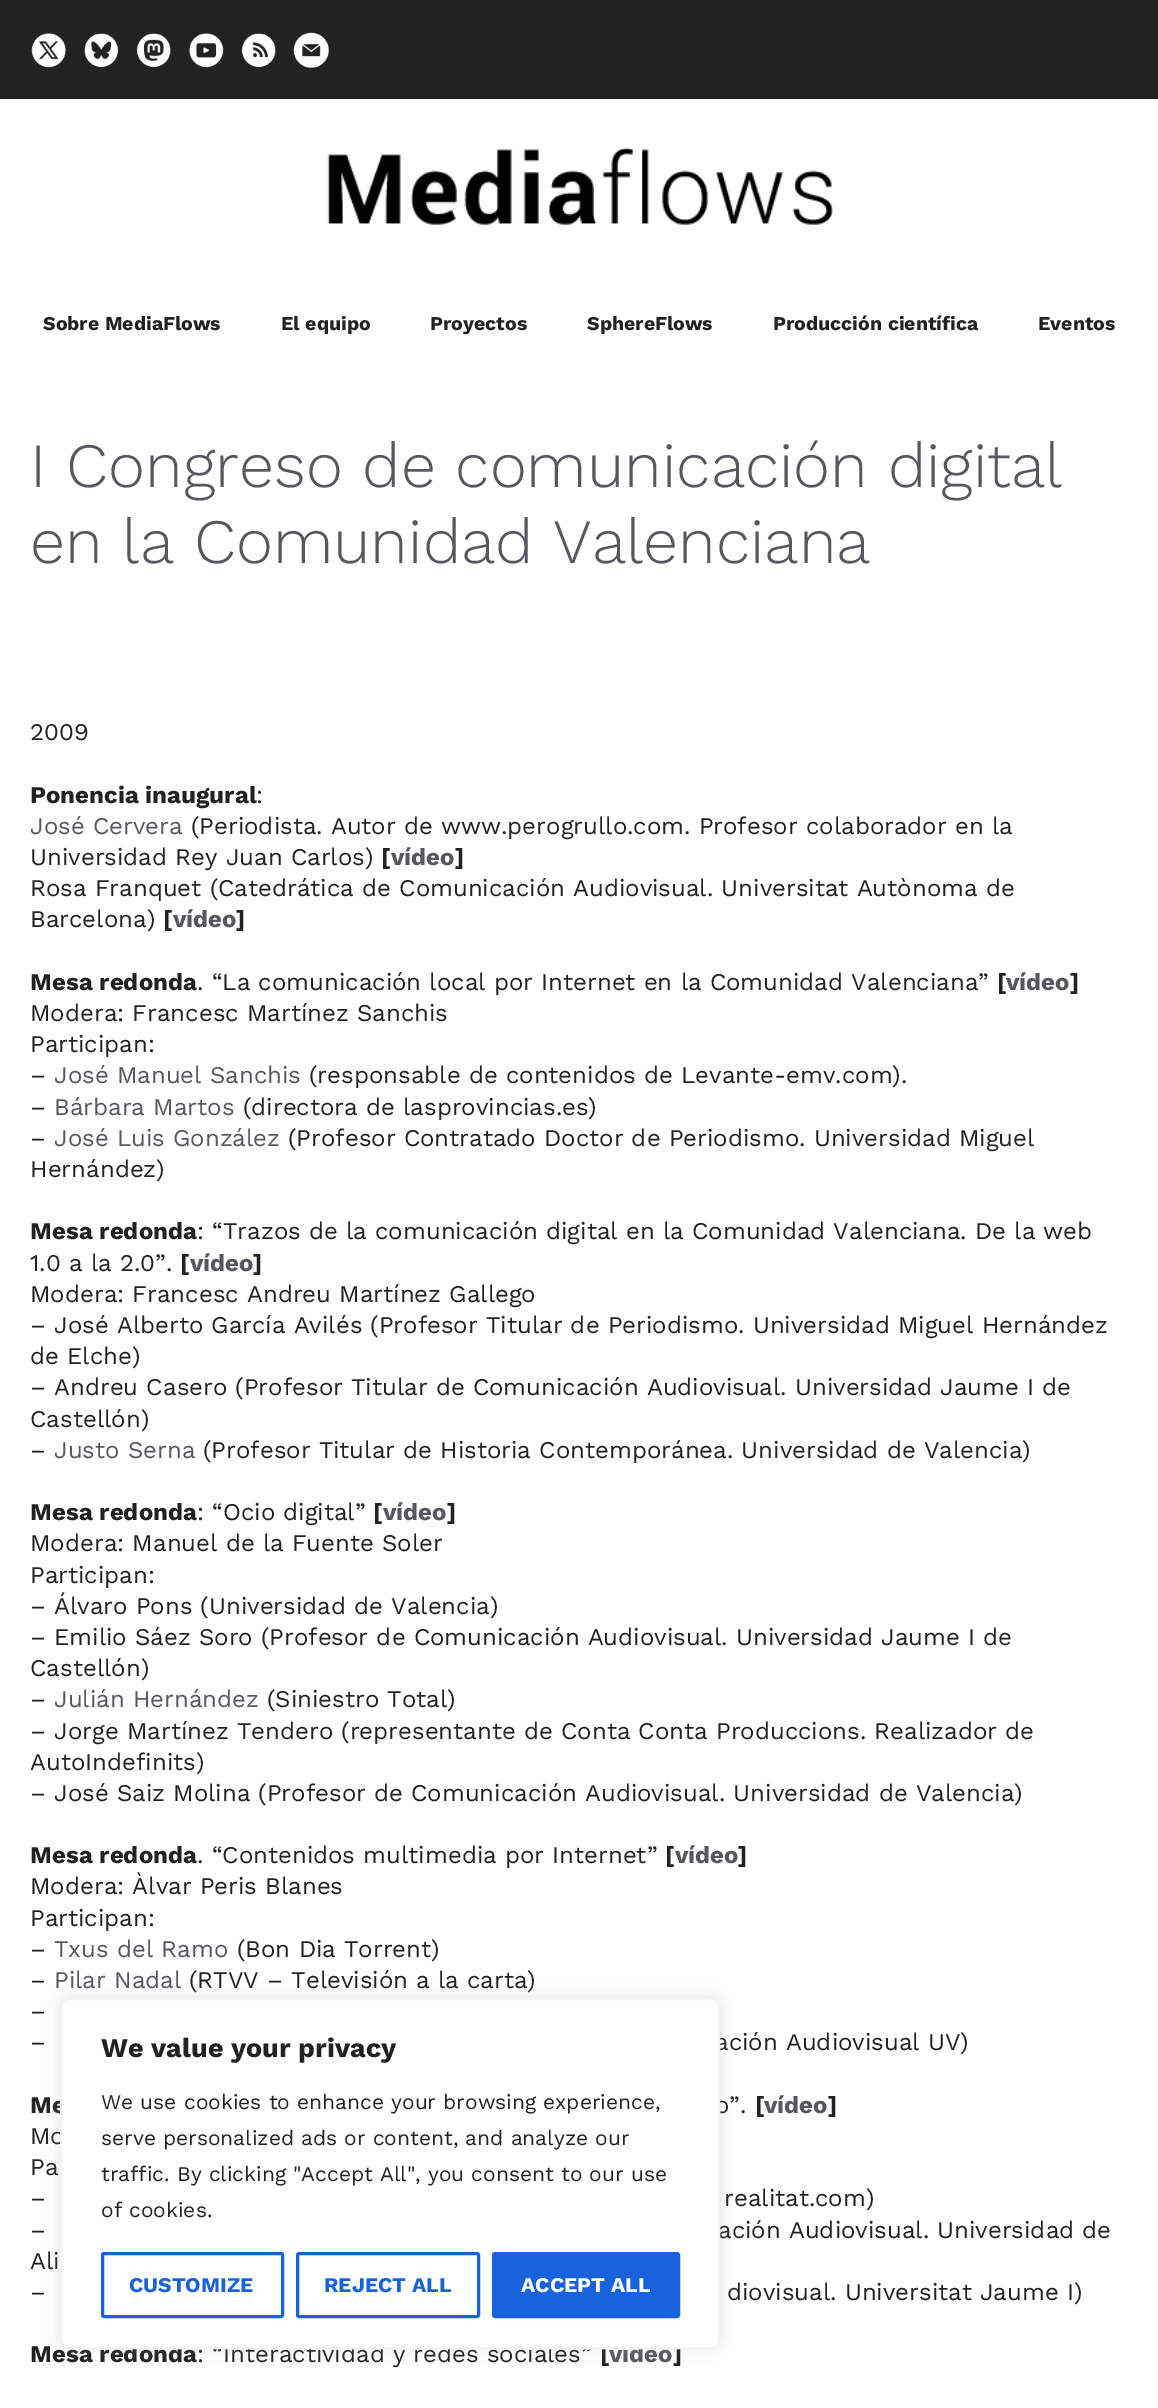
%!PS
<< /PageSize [1158 2408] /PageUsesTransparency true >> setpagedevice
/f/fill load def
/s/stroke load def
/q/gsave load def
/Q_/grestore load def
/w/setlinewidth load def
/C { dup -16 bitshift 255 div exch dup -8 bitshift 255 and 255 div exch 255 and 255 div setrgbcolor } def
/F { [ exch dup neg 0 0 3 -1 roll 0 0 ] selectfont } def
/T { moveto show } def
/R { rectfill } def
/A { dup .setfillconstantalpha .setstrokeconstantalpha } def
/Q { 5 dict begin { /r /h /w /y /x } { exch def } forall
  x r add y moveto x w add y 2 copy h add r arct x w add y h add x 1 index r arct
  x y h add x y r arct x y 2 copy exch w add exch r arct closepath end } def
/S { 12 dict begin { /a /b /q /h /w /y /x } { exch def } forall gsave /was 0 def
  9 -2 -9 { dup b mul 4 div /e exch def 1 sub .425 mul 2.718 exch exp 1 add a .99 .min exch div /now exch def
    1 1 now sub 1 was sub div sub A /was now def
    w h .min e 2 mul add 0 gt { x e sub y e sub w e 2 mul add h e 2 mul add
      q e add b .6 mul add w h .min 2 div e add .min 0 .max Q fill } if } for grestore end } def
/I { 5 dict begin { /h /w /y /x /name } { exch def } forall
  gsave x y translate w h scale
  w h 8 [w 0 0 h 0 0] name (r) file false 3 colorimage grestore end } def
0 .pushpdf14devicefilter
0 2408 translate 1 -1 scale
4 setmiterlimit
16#FFFFFF C
0 0 1158 2408 R
16#222222 C
0 0 1158 99 R
(1.rgb) 31 33 35 35 I
(2.rgb) 84 33 35 35 I
(3.rgb) 136 33 35 35 I
(4.rgb) 189 33 35 35 I
(5.rgb) 241 33 35 35 I
(6.rgb) 293 32 37 37 I
(7.rgb) 327 147 506 78 I
/WorkSans-Bold 19.5 F
(Sobre MediaFlows) 43 330 T
(El equipo) 281 330 T
(Proyectos) 430 330 T
(SphereFlows) 587 330 T
(Producción científica) 773 330 T
(Eventos) 1038 330 T
/WorkSans-Light 63 F
16#575760 C
(I Congreso de comunicación digital) 30 487 T
(en la Comunidad Valenciana) 30 563 T
/WorkSans-Regular 24 F
16#222222 C
(2009) 30 740 T
/WorkSans-Bold 24 F
(Ponencia inaugural) 30 803 T
/WorkSans-Regular 24 F
(:) 256 803 T
16#575760 C
(José Cervera) 30 834 T
16#222222 C
(\(Periodista. Autor de www.perogrullo.com. Profesor colaborador en la) 191 834 T
(Universidad Rey Juan Carlos\)) 30 865 T
/WorkSans-Bold 24 F
([) 381 865 T
16#575760 C
(vídeo) 391 865 T
16#222222 C
(]) 455 865 T
/WorkSans-Regular 24 F
(Rosa Franquet \(Catedrática de Comunicación Audiovisual. Universitat Autònoma de) 30 896 T
(Barcelona\)) 30 927 T
/WorkSans-Bold 24 F
([) 163 927 T
16#575760 C
(vídeo) 173 927 T
16#222222 C
(]) 236 927 T
(Mesa redonda) 30 990 T
/WorkSans-Regular 24 F
(. “La comunicación local por Internet en la Comunidad Valenciana”) 197 990 T
/WorkSans-Bold 24 F
([) 997 990 T
16#575760 C
(vídeo) 1006 990 T
16#222222 C
(]) 1070 990 T
/WorkSans-Regular 24 F
(Modera: Francesc Martínez Sanchis) 30 1021 T
(Participan:) 30 1052 T
(–) 30 1083 T
16#575760 C
(José Manuel Sanchis) 54 1083 T
16#222222 C
(\(responsable de contenidos de Levante-emv.com\).) 309 1083 T
(–) 30 1115 T
16#575760 C
(Bárbara Martos) 54 1115 T
16#222222 C
(\(directora de lasprovincias.es\)) 243 1115 T
(–) 30 1146 T
16#575760 C
(José Luis González) 54 1146 T
16#222222 C
(\(Profesor Contratado Doctor de Periodismo. Universidad Miguel) 288 1146 T
(Hernández\)) 30 1177 T
/WorkSans-Bold 24 F
(Mesa redonda) 30 1239 T
/WorkSans-Regular 24 F
(: “Trazos de la comunicación digital en la Comunidad Valenciana. De la web) 197 1239 T
(1.0 a la 2.0”.) 30 1271 T
/WorkSans-Bold 24 F
([) 180 1271 T
16#575760 C
(vídeo) 190 1271 T
16#222222 C
(]) 253 1271 T
/WorkSans-Regular 24 F
(Modera: Francesc Andreu Martínez Gallego) 30 1302 T
(– José Alberto García Avilés \(Profesor Titular de Periodismo. Universidad Miguel Hernández) 30 1333 T
(de Elche\)) 30 1364 T
(– Andreu Casero \(Profesor Titular de Comunicación Audiovisual. Universidad Jaume I de) 30 1395 T
(Castellón\)) 30 1427 T
(–) 30 1458 T
16#575760 C
(Justo Serna) 54 1458 T
16#222222 C
(\(Profesor Titular de Historia Contemporánea. Universidad de Valencia\)) 203 1458 T
/WorkSans-Bold 24 F
(Mesa redonda) 30 1520 T
/WorkSans-Regular 24 F
(: “Ocio digital”) 197 1520 T
/WorkSans-Bold 24 F
([) 373 1520 T
16#575760 C
(vídeo) 383 1520 T
16#222222 C
(]) 447 1520 T
/WorkSans-Regular 24 F
(Modera: Manuel de la Fuente Soler) 30 1551 T
(Participan:) 30 1583 T
(– Álvaro Pons \(Universidad de Valencia\)) 30 1614 T
(– Emilio Sáez Soro \(Profesor de Comunicación Audiovisual. Universidad Jaume I de) 30 1645 T
(Castellón\)) 30 1676 T
(–) 30 1707 T
16#575760 C
(Julián Hernández) 54 1707 T
16#222222 C
(\(Siniestro Total\)) 267 1707 T
(– Jorge Martínez Tendero \(representante de Conta Conta Produccions. Realizador de) 30 1739 T
(AutoIndefinits\)) 30 1770 T
(– José Saiz Molina \(Profesor de Comunicación Audiovisual. Universidad de Valencia\)) 30 1801 T
/WorkSans-Bold 24 F
(Mesa redonda) 30 1863 T
/WorkSans-Regular 24 F
(. “Contenidos multimedia por Internet”) 197 1863 T
/WorkSans-Bold 24 F
([) 665 1863 T
16#575760 C
(vídeo) 675 1863 T
16#222222 C
(]) 738 1863 T
/WorkSans-Regular 24 F
(Modera: Àlvar Peris Blanes) 30 1894 T
(Participan:) 30 1926 T
(–) 30 1957 T
16#575760 C
(Txus del Ramo) 54 1957 T
16#222222 C
(\(Bon Dia Torrent\)) 237 1957 T
(–) 30 1988 T
16#575760 C
(Pilar Nadal) 54 1988 T
16#222222 C
(\(RTVV – Televisión a la carta\)) 189 1988 T
(–) 30 2019 T
(–) 30 2050 T
(ación Audiovisual UV\)) 715 2050 T
/WorkSans-Bold 24 F
(Me) 30 2113 T
/WorkSans-Regular 24 F
(o”.) 715 2113 T
/WorkSans-Bold 24 F
([) 755 2113 T
16#575760 C
(vídeo) 764 2113 T
16#222222 C
(]) 828 2113 T
/WorkSans-Regular 24 F
(Mo) 30 2144 T
(Pa) 30 2175 T
(–) 30 2206 T
(realitat.com\)) 724 2206 T
(–) 30 2238 T
(ación Audiovisual. Universidad de) 718 2238 T
(Ali) 30 2269 T
(–) 30 2300 T
(diovisual. Universitat Jaume I\)) 727 2300 T
/WorkSans-Bold 24 F
(Mesa redonda) 30 2362 T
/WorkSans-Regular 24 F
(: “Interactividad y redes sociales”) 197 2362 T
/WorkSans-Bold 24 F
([) 600 2362 T
16#575760 C
(vídeo) 609 2362 T
16#222222 C
(]) 673 2362 T
16#ACABAB C
60 1997 660 351 9 7.5 .3 S
16#FFFFFF C
61 1999 658 349 8 Q q f Q_
16#F4F4F4 C
2 w
s
/WorkSans-Bold 27 F
16#222222 C
(We value your privacy) 101 2057 T
/WorkSans-Regular 21 F
(We use cookies to enhance your browsing experience,) 101 2109 T
(serve personalized ads or content, and analyze our) 101 2145 T
(traffic. By clicking "Accept All", you consent to our use) 101 2181 T
(of cookies.) 101 2217 T
16#1863DC C
3 w
102.5 2253.5 180 63 1.5 Q s
/WorkSans-Bold 21 F
(CUSTOMIZE) 129 2292 T
297.5 2253.5 181 63 1.5 Q s
(REJECT ALL) 324 2292 T
493.5 2253.5 185 63 1.5 Q q f Q_
s
16#FFFFFF C
(ACCEPT ALL) 521 2292 T
.poppdf14devicefilter showpage
